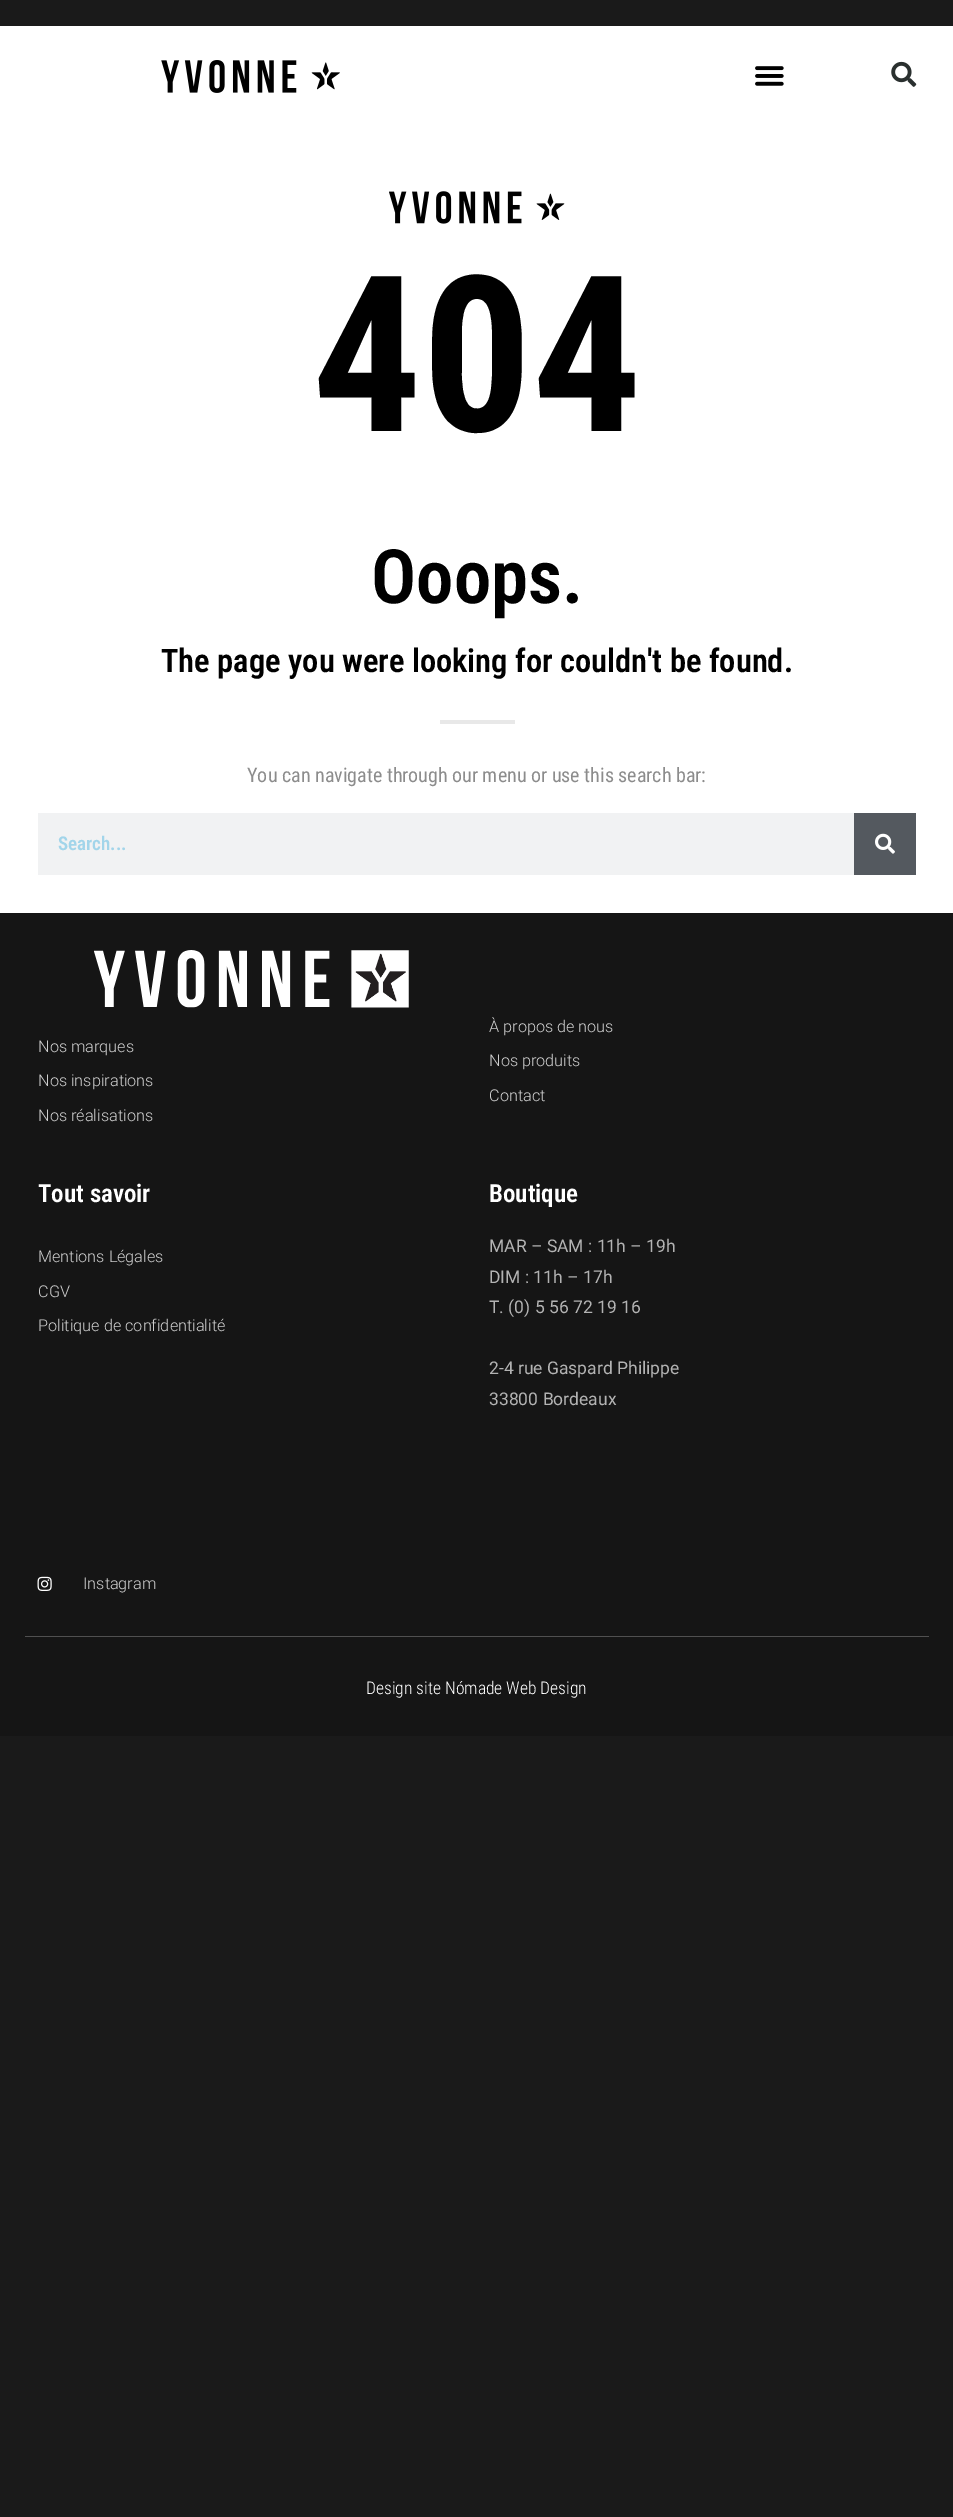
%!PS
<< /PageSize [953 2517] >> setpagedevice
/C { dup -16 bitshift 255 div exch dup -8 bitshift 255 and 255 div exch 255 and 255 div setrgbcolor } def
/F { [ exch dup neg 0 0 3 -1 roll 0 0 ] selectfont } def
/T { moveto show } def
/R { rectfill } def
/I { 5 dict begin { /h /w /y /x /name } { exch def } forall
  gsave x y translate w h scale
  w h 8 [w 0 0 h 0 0] name (r) file false 3 colorimage grestore end } def
0 2517 translate 1 -1 scale
4 setmiterlimit
16#1A1A1A C
0 0 953 2517 R
16#FFFFFF C
0 26 953 887 R
(1.rgb) 161 60 179 33 I
(2.rgb) 755 66 29 20 I
(3.rgb) 891 61 26 26 I
(4.rgb) 389 191 176 33 I
/RobotoCondensed-Bold 218 F
16#000000 C
(404) 312 431 T
/RobotoCondensed-SemiBold 75 F
(Ooops.) 371 603 T
/RobotoCondensed-SemiBold 32.5 F
(The page you were looking for couldn't be found.) 161 672 T
16#E8E8E8 C
440 720 75 4 R
/RobotoCondensed-Regular 20 F
16#8C8C8C C
(You can navigate through our menu or use this search bar:) 247 782 T
16#F1F2F3 C
38 813 816 62 R
/RobotoCondensed-SemiBold 19 F
16#A2D5EA C
(Search...) 58 850 T
16#54595F C
854 813 62 62 R
(5.rgb) 875 833 20 21 I
16#151515 C
0 913 953 823 R
(6.rgb) 94 950 315 58 I
/Roboto-Light 16.25 F
16#CECECE C
(Nos marques) 38 1052 T
(Nos inspirations) 38 1086 T
(Nos réalisations) 38 1121 T
(À propos de nous) 489 1032 T
(Nos produits) 489 1066 T
(Contact) 489 1101 T
/RobotoCondensed-SemiBold 25 F
16#FFFFFF C
(Tout savoir) 38 1202 T
/Roboto-Light 16.25 F
16#CECECE C
(Mentions Légales) 38 1262 T
(CGV) 38 1297 T
(Politique de confidentialité) 38 1331 T
/RobotoCondensed-SemiBold 25 F
16#FFFFFF C
(Boutique) 489 1202 T
/Roboto-Regular 17.5 F
16#B3B3B3 C
(MAR – SAM : 11h – 19h) 489 1252 T
(DIM : 11h – 17h) 489 1283 T
(T. \(0\) 5 56 72 19 16) 489 1313 T
(2-4 rue Gaspard Philippe) 489 1374 T
(33800 Bordeaux) 489 1405 T
(7.rgb) 37 1576 15 15 I
/Roboto-Light 16.25 F
16#CECECE C
(Instagram) 83 1589 T
16#505050 C
25 1636 904 1 R
/RobotoCondensed-Light 17.5 F
16#FFFFFF C
(Design site Nómade Web Design) 366 1694 T
showpage
